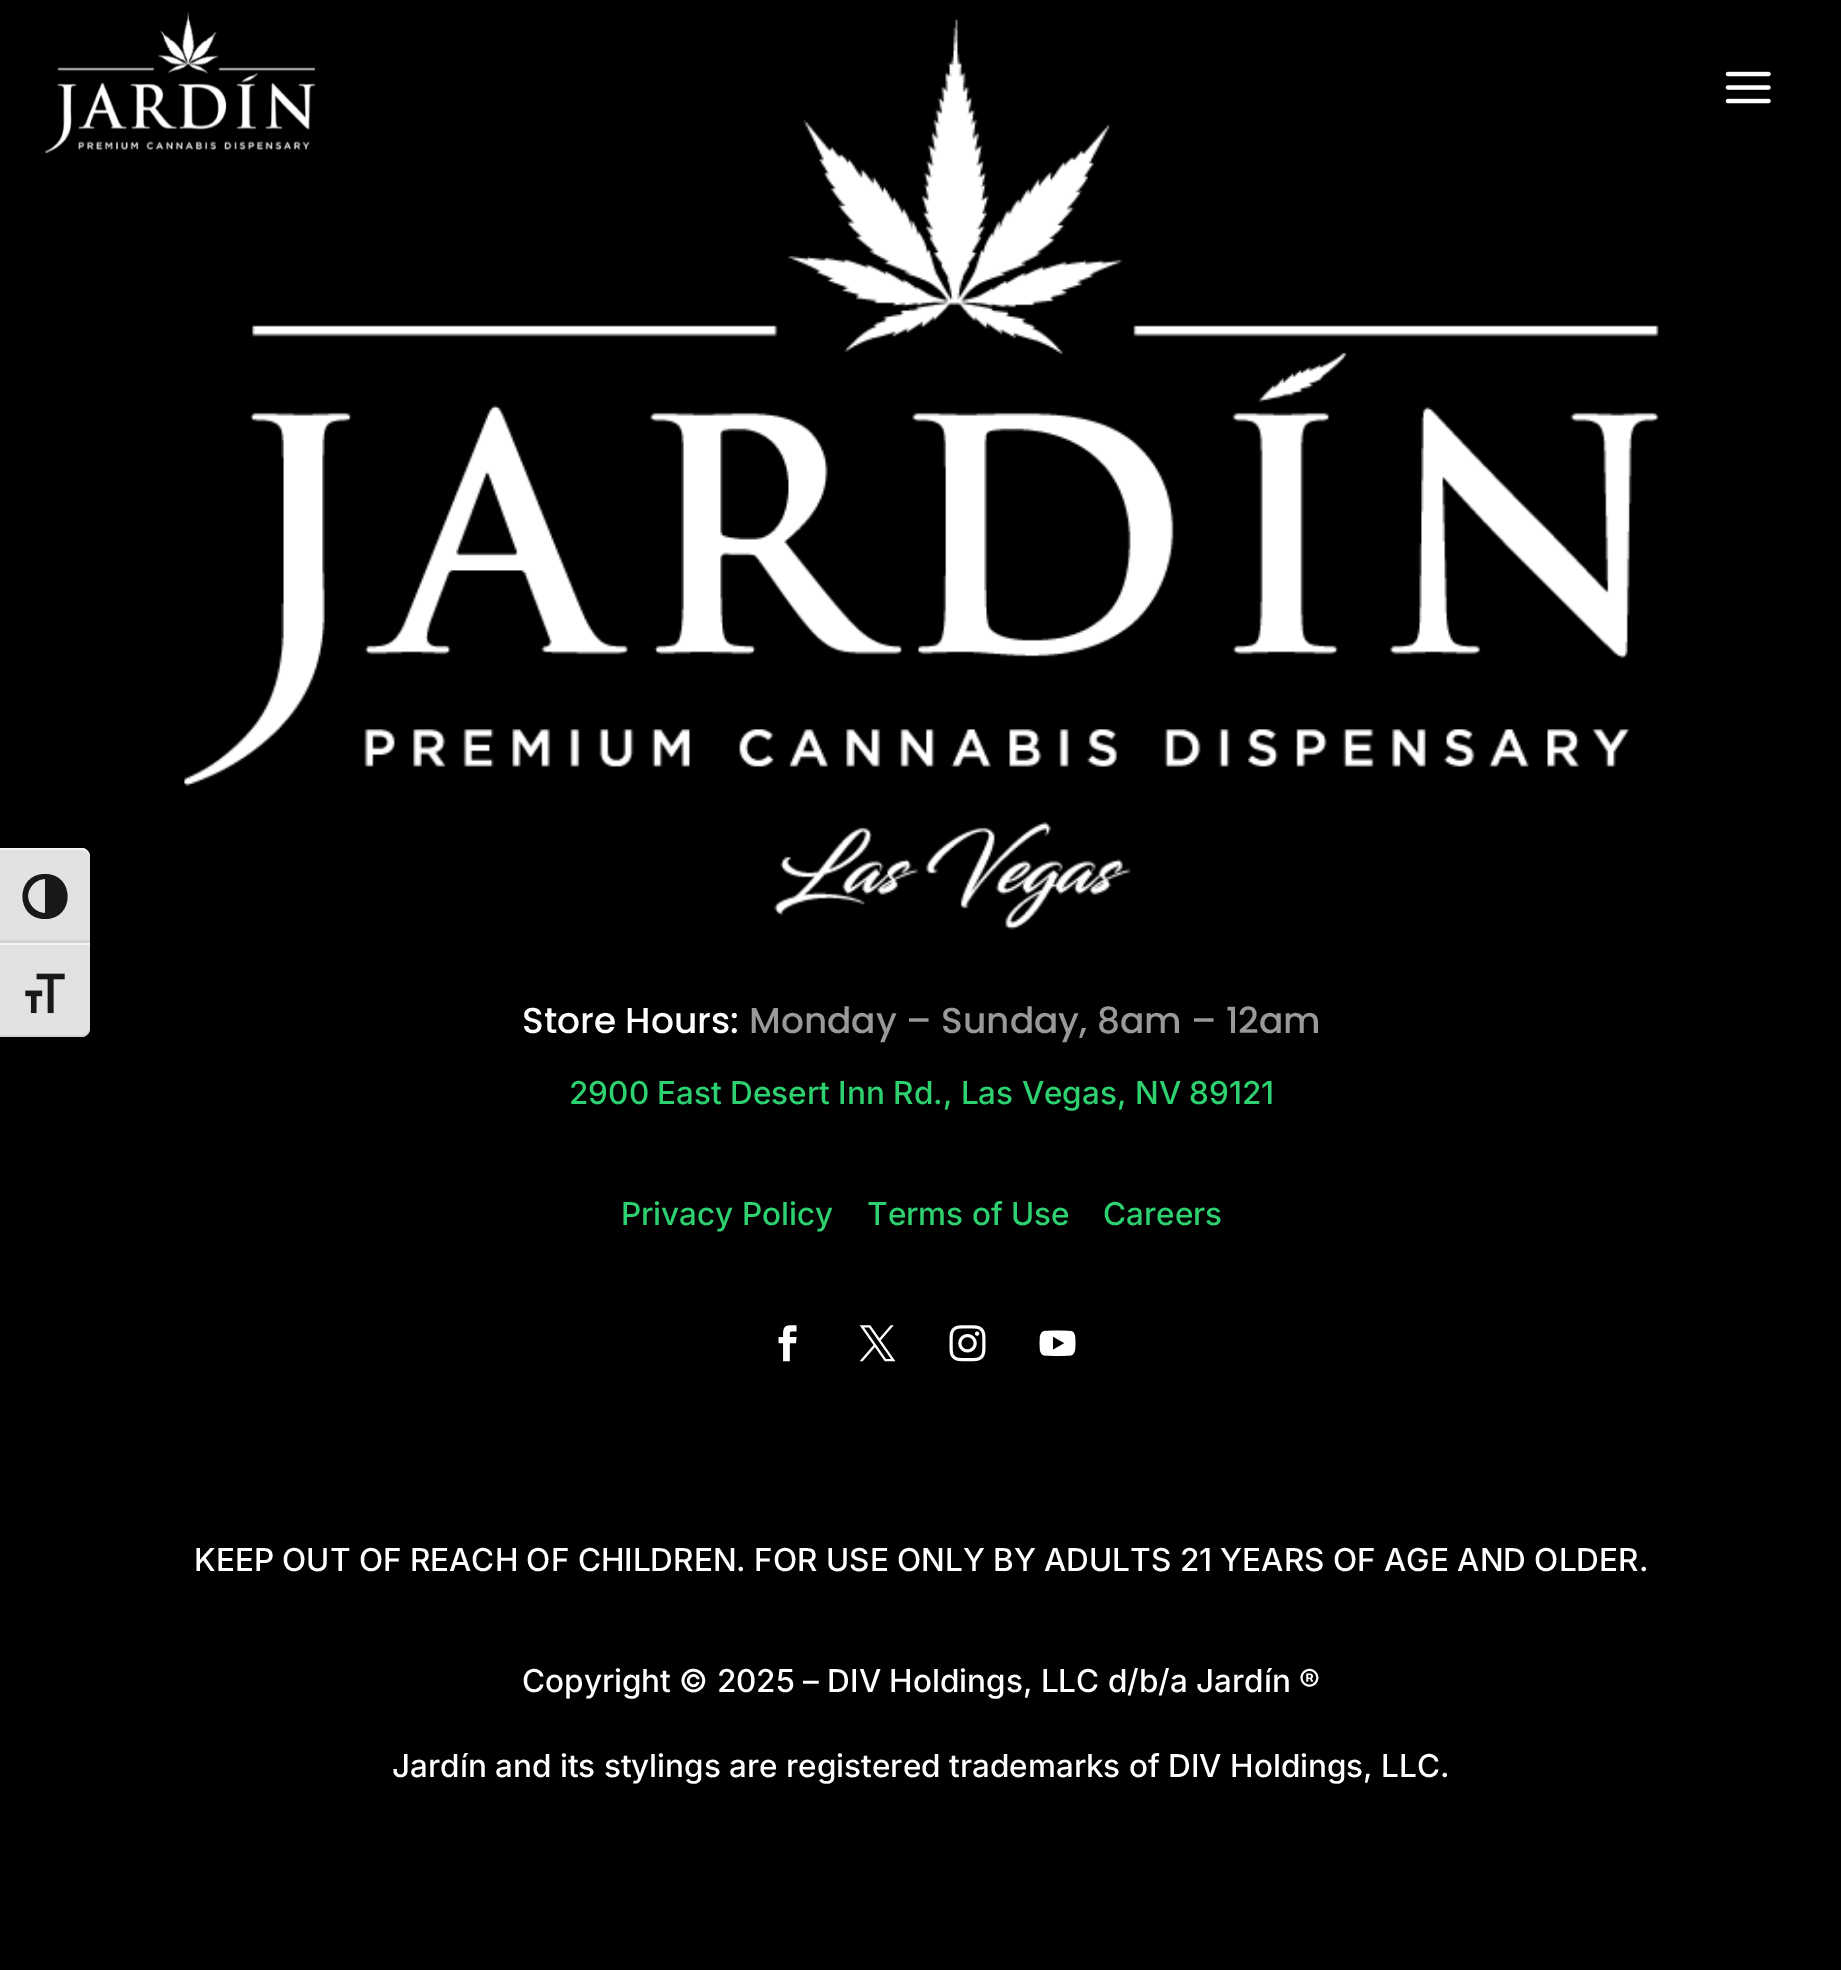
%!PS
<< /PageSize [1841 1970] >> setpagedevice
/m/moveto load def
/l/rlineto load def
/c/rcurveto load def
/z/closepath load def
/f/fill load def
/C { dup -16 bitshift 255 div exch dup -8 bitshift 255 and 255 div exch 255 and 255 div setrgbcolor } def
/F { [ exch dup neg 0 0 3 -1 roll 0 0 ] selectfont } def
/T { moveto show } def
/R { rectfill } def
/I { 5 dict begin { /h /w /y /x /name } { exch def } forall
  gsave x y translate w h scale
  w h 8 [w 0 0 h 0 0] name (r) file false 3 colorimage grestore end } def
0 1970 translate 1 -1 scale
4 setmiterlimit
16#000000 C
0 0 1841 1970 R
16#E2E2E2 C
0 848 m 81 0 l 5 0 9 4 9 9 c 0 86 l -90 0 l z f
16#F5F5F5 C
0 850 m 81 0 l 5 0 9 4 9 7 c 0 -4 -3 -8 -7 -9 c -83 0 l z f
16#D2D2D2 C
0 940 90 3 R
16#181818 C
45 874 m -30 0 -30 45 0 45 c 30 0 30 -45 0 -45 c z 28 896 m 0 -9 8 -17 17 -17 c 0 34 l -9 0 -17 -8 -17 -17 c z f
16#E2E2E2 C
0 943 m 90 0 l 0 85 l 0 5 -4 9 -9 9 c -81 0 l z f
16#F5F5F5 C
0 943 90 2 R
16#D2D2D2 C
0 1035 m 0 2 l 81 0 l 5 0 9 -4 9 -9 c 0 4 -4 7 -9 7 c z f
(1.rgb) 25 973 40 41 I
(4.rgb) 184 19 1475 911 I
(2.rgb) 45 12 270 141 I
(3.rgb) 1725 71 46 33 I
/Poppins-Medium 36 F
16#FFFFFF C
(Store Hours:) 522 1033 T
16#999999 C
(Monday – Sunday, 8am – 12am) 749 1033 T
/Inter-Medium 31.5 F
16#2ED16F C
(2900 East Desert Inn Rd., Las Vegas, NV 89121) 569 1104 T
(Privacy Policy) 621 1225 T
(Terms of Use) 867 1225 T
(Careers) 1103 1225 T
(5.rgb) 778 1325 19 37 I
(6.rgb) 859 1325 37 37 I
(7.rgb) 949 1325 37 37 I
(8.rgb) 1039 1330 37 27 I
16#FFFFFF C
(KEEP OUT OF REACH OF CHILDREN. FOR USE ONLY BY ADULTS 21 YEARS OF AGE AND OLDER.) 194 1571 T
(Copyright © 2025 – DIV Holdings, LLC d/b/a Jardín ®) 522 1692 T
(Jardín and its stylings are registered trademarks of DIV Holdings, LLC.) 392 1777 T
showpage
